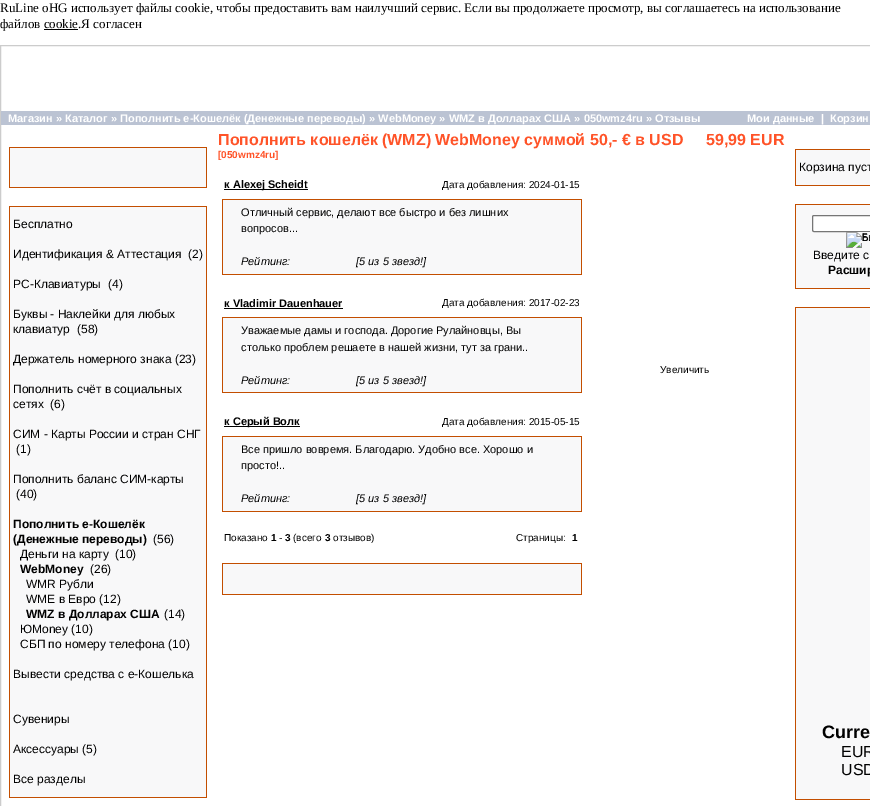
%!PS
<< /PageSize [870 806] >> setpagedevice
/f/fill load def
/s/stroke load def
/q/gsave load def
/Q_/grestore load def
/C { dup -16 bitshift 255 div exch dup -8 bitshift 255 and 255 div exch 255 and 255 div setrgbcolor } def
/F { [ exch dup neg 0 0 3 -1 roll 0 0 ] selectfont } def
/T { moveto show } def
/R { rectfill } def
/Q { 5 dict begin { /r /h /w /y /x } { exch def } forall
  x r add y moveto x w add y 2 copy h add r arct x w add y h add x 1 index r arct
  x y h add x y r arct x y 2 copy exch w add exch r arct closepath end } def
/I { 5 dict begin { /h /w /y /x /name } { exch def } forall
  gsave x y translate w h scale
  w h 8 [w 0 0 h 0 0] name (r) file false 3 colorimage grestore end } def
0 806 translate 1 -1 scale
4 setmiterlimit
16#FFFFFF C
0 0 870 806 R
/LiberationSerif-Regular 13 F
16#000000 C
(RuLine oHG использует файлы cookie, чтобы предоставить вам наилучший сервис. Если вы продолжаете просмотр, вы соглашаетесь на использование) 0 12 T
(файлов cookie.Я согласен) 0 28 T
44 29 34 1 R
16#CCCCCC C
.5 45.5 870 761 rectstroke
16#BBC3D3 C
1 111 869 14 R
/LiberationSans-Bold 11 F
16#FFFFFF C
(Магазин » Каталог » Пополнить e-Кошелёк \(Денежные переводы\) » WebMoney » WMZ в Долларах США » 050wmz4ru » Отзывы) 8 122 T
(Мои данные) 747 122 T
(|) 821 122 T
(Корзин) 830 122 T
16#C34E00 C
9 147 198 41 R
16#F8F8F9 C
10 148 196 39 R
16#C34E00 C
9 206 198 592 R
16#F8F8F9 C
10 207 196 590 R
/LiberationSans-Regular 12 F
16#000000 C
(Бесплатно) 13 228 T
(Идентификация & Аттестация) 13 258 T
(\(2\)) 188 258 T
(PC-Клавиатуры) 13 288 T
(\(4\)) 108 288 T
(Буквы - Наклейки для любых) 13 318 T
(клавиатур) 13 333 T
(\(58\)) 77 333 T
(Держатель номерного знака \(23\)) 13 363 T
(Пополнить счёт в социальных) 13 393 T
(сетях) 13 408 T
(\(6\)) 50 408 T
(СИМ - Карты России и стран СНГ) 13 438 T
(\(1\)) 16 453 T
(Пополнить баланс СИМ-карты) 13 483 T
(\(40\)) 16 498 T
/LiberationSans-Bold 12 F
(Пополнить e-Кошелёк) 13 528 T
(\(Денежные переводы\)) 13 543 T
/LiberationSans-Regular 12 F
(\(56\)) 153 543 T
(Деньги на карту) 20 558 T
(\(10\)) 115 558 T
/LiberationSans-Bold 12 F
(WebMoney) 20 573 T
/LiberationSans-Regular 12 F
(\(26\)) 90 573 T
(WMR Рубли) 26 588 T
(WME в Евро \(12\)) 26 603 T
/LiberationSans-Bold 12 F
(WMZ в Долларах США) 26 618 T
/LiberationSans-Regular 12 F
(\(14\)) 164 618 T
(ЮMoney \(10\)) 20 633 T
(СБП по номеру телефона \(10\)) 20 648 T
(Вывести средства с е-Кошелька) 13 678 T
(Сувениры) 13 723 T
(Аксессуары \(5\)) 13 753 T
(Все разделы) 13 783 T
/LiberationSans-Bold 16 F
16#FF5328 C
(Пополнить кошелёк \(WMZ\) WebMoney суммой 50,- € в USD) 218 145 T
/LiberationSans-Bold 10 F
([050wmz4ru]) 218 158 T
/LiberationSans-Bold 16 F
(59,99 EUR) 706 145 T
16#000000 C
224 189 84 1 R
/LiberationSans-Bold 11 F
(к Alexej Scheidt) 224 188 T
/LiberationSans-Regular 10 F
(Дата добавления: 2024-01-15) 442 188 T
16#C34E00 C
222 199 360 76 R
16#F8F8F9 C
223 200 358 74 R
/LiberationSans-Regular 11 F
16#000000 C
(Отличный сервис, делают все быстро и без лишних) 241 216 T
(вопросов...) 241 232 T
/LiberationSans-Italic 11 F
(Рейтинг:) 241 265 T
([5 из 5 звезд!]) 356 265 T
/LiberationSans-Bold 11 F
(к Vladimir Dauenhauer) 224 307 T
224 308 119 1 R
/LiberationSans-Regular 10 F
(Дата добавления: 2017-02-23) 442 306 T
16#C34E00 C
222 317 360 76 R
16#F8F8F9 C
223 318 358 74 R
/LiberationSans-Regular 11 F
16#000000 C
(Уважаемые дамы и господа. Дорогие Рулайновцы, Вы) 241 334 T
(столько проблем решаете в нашей жизни, тут за грани..) 241 351 T
/LiberationSans-Italic 11 F
(Рейтинг:) 241 384 T
([5 из 5 звезд!]) 356 384 T
224 426 76 1 R
/LiberationSans-Bold 11 F
(к Серый Волк) 224 425 T
/LiberationSans-Regular 10 F
(Дата добавления: 2015-05-15) 442 425 T
16#C34E00 C
222 436 360 76 R
16#F8F8F9 C
223 437 358 74 R
/LiberationSans-Regular 11 F
16#000000 C
(Все пришло вовремя. Благодарю. Удобно все. Хорошо и) 241 453 T
(просто!..) 241 469 T
/LiberationSans-Italic 11 F
(Рейтинг:) 241 502 T
([5 из 5 звезд!]) 356 502 T
/LiberationSans-Regular 10 F
(Показано) 224 541 T
/LiberationSans-Bold 10 F
(1) 271 541 T
/LiberationSans-Regular 10 F
(-) 279 541 T
/LiberationSans-Bold 10 F
(3) 285 541 T
/LiberationSans-Regular 10 F
(\(всего) 293 541 T
/LiberationSans-Bold 10 F
(3) 325 541 T
/LiberationSans-Regular 10 F
(отзывов\)) 333 541 T
(Страницы:) 516 541 T
/LiberationSans-Bold 10 F
(1) 572 541 T
16#C34E00 C
222 563 360 32 R
16#F8F8F9 C
223 564 358 30 R
/LiberationSans-Regular 10 F
16#000000 C
(Увеличить) 660 373 T
16#C34E00 C
795 149 75 37 R
16#F8F8F9 C
796 150 74 35 R
/LiberationSans-Regular 12 F
16#000000 C
(Корзина пуст) 799 171 T
16#C34E00 C
795 204 75 85 R
16#F8F8F9 C
796 205 74 83 R
16#FFFFFF C
812.5 215.5 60 16 1.5 Q q f Q_
16#767676 C
s
(1.rgb) 846 232 24 16 I
/LiberationSans-Regular 10 F
16#000000 C
(Б) 862 241 T
/LiberationSans-Regular 12 F
(Введите с) 813 259 T
/LiberationSans-Bold 12 F
(Расшир) 828 274 T
16#C34E00 C
795 307 75 493 R
16#F8F8F9 C
796 308 74 491 R
/LiberationSans-Bold 18 F
16#000000 C
(Curre) 822 738 T
/LiberationSans-Regular 16 F
(EUR) 841 757 T
(USD) 841 775 T
showpage
